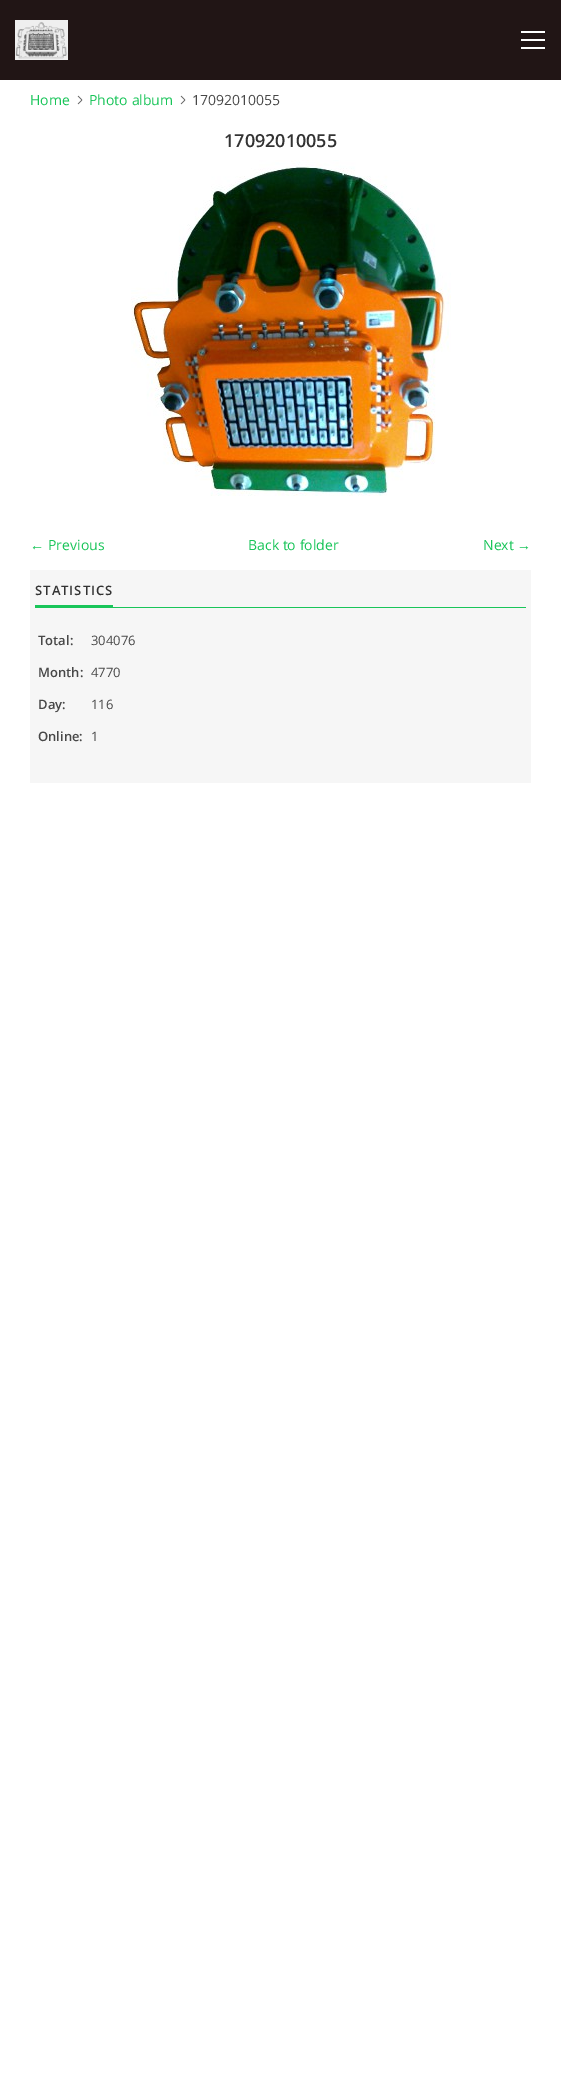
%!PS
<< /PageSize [561 2094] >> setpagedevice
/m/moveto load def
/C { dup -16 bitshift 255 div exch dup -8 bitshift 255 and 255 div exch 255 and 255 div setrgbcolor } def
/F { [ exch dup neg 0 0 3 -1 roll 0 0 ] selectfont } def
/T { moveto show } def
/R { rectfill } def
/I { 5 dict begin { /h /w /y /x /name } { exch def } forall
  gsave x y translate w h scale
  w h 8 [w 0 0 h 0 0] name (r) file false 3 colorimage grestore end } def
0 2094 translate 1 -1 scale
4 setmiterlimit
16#FFFFFF C
0 0 561 2094 R
16#211515 C
0 0 561 80 R
(1.rgb) 15 20 53 40 I
(2.rgb) 521 31 24 18 I
(3.rgb) 77 95 6 10 I
/OpenSans-Regular 14 F
16#19C559 C
(Home) 30 105 T
(3.rgb) 180 95 6 10 I
(Photo album) 89 105 T
16#484848 C
(17092010055) 192 105 T
/OpenSans-SemiBold 18 F
16#333333 C
(17092010055) 224 147 T
(4.rgb) 131 160 320 336 I
/LiberationSerif-Regular 14 F
16#19C559 C
(←) 30 550 T
/OpenSans-Regular 14 F
(Previous) 48 550 T
(Back to folder) 248 550 T
(Next) 483 550 T
/LiberationSerif-Regular 14 F
(→) 517 550 T
16#F6F6F6 C
30 570 501 213 R
/OpenSans-SemiBold 13 F
16#333333 C
35 595 m 1 0 (STATISTICS) ashow
16#19C559 C
35 605 78 2 R
35 607 491 1 R
16#484848 C
(Total:) 38 645 T
/OpenSans-Regular 13 F
(304076) 91 645 T
/OpenSans-SemiBold 13 F
(Month:) 38 677 T
/OpenSans-Regular 13 F
(4770) 91 677 T
/OpenSans-SemiBold 13 F
(Day:) 38 709 T
/OpenSans-Regular 13 F
(116) 91 709 T
/OpenSans-SemiBold 13 F
(Online:) 38 741 T
/OpenSans-Regular 13 F
(1) 91 741 T
showpage
